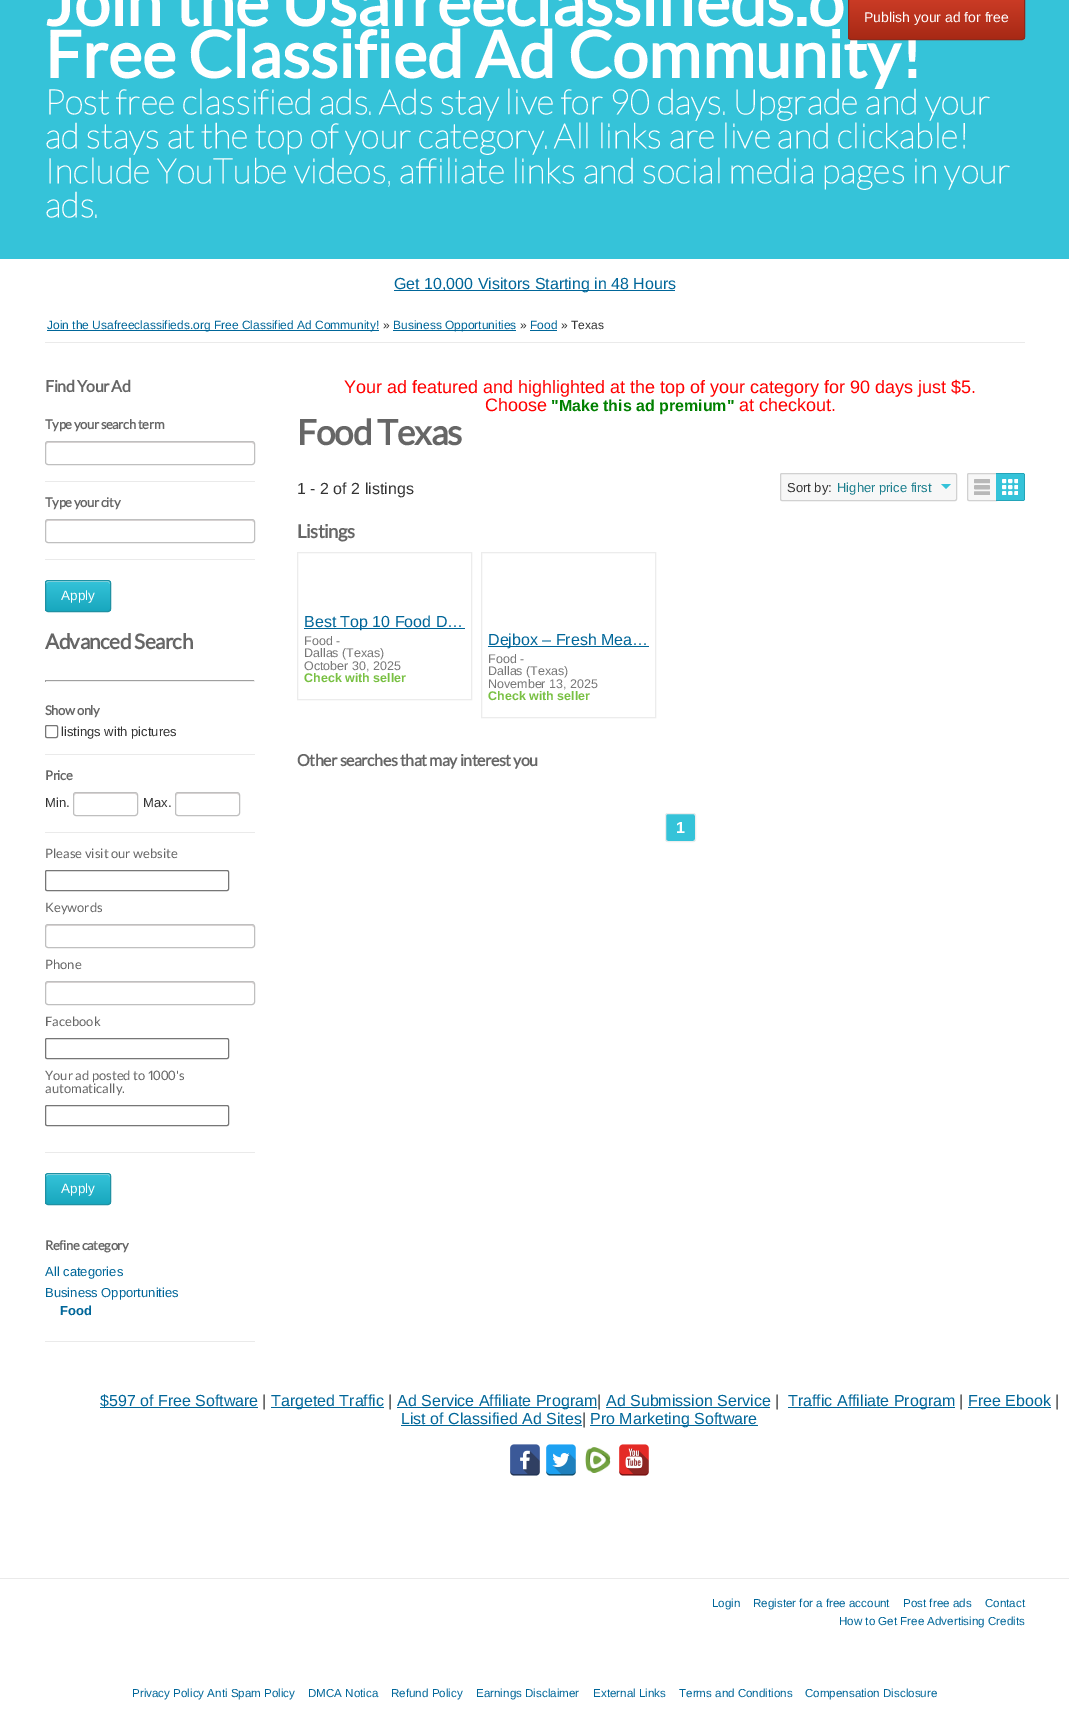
%!PS
<< /PageSize [1069 1730] >> setpagedevice
/m/moveto load def
/l/rlineto load def
/c/rcurveto load def
/z/closepath load def
/f/fill load def
/s/stroke load def
/q/gsave load def
/Q_/grestore load def
/C { dup -16 bitshift 255 div exch dup -8 bitshift 255 and 255 div exch 255 and 255 div setrgbcolor } def
/F { [ exch dup neg 0 0 3 -1 roll 0 0 ] selectfont } def
/T { moveto show } def
/R { rectfill } def
/Q { 5 dict begin { /r /h /w /y /x } { exch def } forall
  x r add y moveto x w add y 2 copy h add r arct x w add y h add x 1 index r arct
  x y h add x y r arct x y 2 copy exch w add exch r arct closepath end } def
/I { 5 dict begin { /h /w /y /x /name } { exch def } forall
  gsave x y translate w h scale
  w h 8 [w 0 0 h 0 0] name (r) file false 3 colorimage grestore end } def
0 1730 translate 1 -1 scale
4 setmiterlimit
16#FFFFFF C
0 0 1069 1730 R
16#35C3D9 C
0 0 1069 259 R
/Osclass-Bold 64.75 F
16#FFFFFF C
(Join the Usafreeclassifieds.o) 45 26 T
(Free Classified Ad Community!) 45 78 T
/Osclass-ExtraLight 34.55 F
(Post free classified ads. Ads stay live for 90 days. Upgrade and your) 45 114 T
(ad stays at the top of your category. All links are live and clickable!) 45 148 T
(Include YouTube videos, affiliate links and social media pages in your) 45 183 T
(ads.) 45 217 T
q
848 -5 177 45 3 Q clip newpath
q 848 0 m 177 0 l 0 39 l -177 0 l z clip newpath
<< /ShadingType 2 /ColorSpace /DeviceRGB /Coords [937 -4 937 39] /Extend [true true] /Function << /FunctionType 2 /Domain [0 1] /C0 [.808 .239 .153] /C1 [.655 .161 .082] /N 1 >> >> shfill Q_
Q_
16#8D2A1B C
848.5 -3.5 176 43 2.5 Q s
/LiberationSans-Regular 14 F
16#FFFFFF C
(Publish your ad for free) 864 22 T
16#006699 C
394 290 281 1 R
/LiberationSans-Regular 16 F
(Get 10,000 Visitors Starting in 48 Hours) 394 289 T
16#EAEAEA C
45 342 980 1 R
16#006699 C
47 330 332 1 R
/LiberationSans-Regular 12 F
(Join the Usafreeclassifieds.org Free Classified Ad Community!) 47 329 T
16#333333 C
(») 383 329 T
16#006699 C
393 330 123 1 R
(Business Opportunities) 393 329 T
16#333333 C
(») 520 329 T
16#006699 C
(Food) 530 329 T
530 330 27 1 R
16#333333 C
(» Texas) 561 329 T
/Osclass-Bold 16 F
16#666666 C
45 392 m -.5 0 (Find Your Ad) ashow
16#EAEAEA C
45 481 210 1 R
/Osclass-Bold 13 F
16#666666 C
45 429 m -.4 0 (Type your search term) ashow
16#DFD8D8 C
48 443 m 204 0 l 2 1 l 0 1 l 0 -1 0 -3 -2 -3 c -204 0 l -2 0 -2 2 -2 3 c 0 -1 1 -2 2 -2 c z f
16#BFBFBF C
45.5 441.5 209 23 2.5 Q s
16#EAEAEA C
45 559 210 1 R
16#666666 C
45 507 m -.4 0 (Type your city) ashow
16#DFD8D8 C
48 521 m 204 0 l 2 1 l 0 1 l 0 -1 0 -3 -2 -3 c -204 0 l -2 0 -2 2 -2 3 c 0 -1 1 -2 2 -2 c z f
16#BFBFBF C
45.5 519.5 209 23 2.5 Q s
q
45 580 66 32 3 Q clip newpath
q 45 581 m 66 0 l 0 30 l -66 0 l z clip newpath
<< /ShadingType 2 /ColorSpace /DeviceRGB /Coords [78 581 78 611] /Extend [true true] /Function << /FunctionType 2 /Domain [0 1] /C0 [.208 .765 .851] /C1 [.094 .655 .745] /N 1 >> >> shfill Q_
Q_
16#A0E3ED C
48 582 m 60 0 l 1 0 2 1 2 2 c 0 -6 -8 -3 -12 -3 c -40 0 l -4 0 -12 -3 -12 3 c 0 -1 1 -2 2 -2 c z f
16#1F91A3 C
45.5 580.5 65 31 2.5 Q s
/LiberationSans-Regular 13.5 F
16#FFFFFF C
(Apply) 61 600 T
/Osclass-Bold 20.75 F
16#666666 C
45 649 m -.6 0 (Advanced Search) ashow
16#9F9F9F C
45 680 210 1 R
16#EEEEEE C
254 680 1 2 R
45 681 210 1 R
16#9F9F9F C
45 680 1 2 R
16#EAEAEA C
45 754 210 1 R
/Osclass-Bold 13 F
16#666666 C
45 715 m -.4 0 (Show only) ashow
16#767676 C
45.5 725.5 12 12 1.5 Q s
/LiberationSans-Regular 13 F
16#333333 C
(listings with pictures) 61 736 T
16#EAEAEA C
45 832 210 1 R
/Osclass-Bold 13 F
16#666666 C
45 780 m -.4 0 (Price) ashow
/LiberationSans-Regular 13 F
16#333333 C
(Min.) 45 807 T
16#DFD8D8 C
76 794 m 59 0 l 1 0 2 1 2 2 c 0 -6 -8 -3 -12 -3 c -39 0 l -4 0 -12 -3 -12 3 c 0 -1 1 -2 2 -2 c z f
16#BFBFBF C
73.5 792.5 64 23 2.5 Q s
16#333333 C
(Max.) 143 807 T
16#DFD8D8 C
178 794 m 59 0 l 1 0 2 1 2 2 c 0 -6 -8 -3 -12 -3 c -39 0 l -4 0 -12 -3 -12 3 c 0 -1 1 -2 2 -2 c z f
16#BFBFBF C
175.5 792.5 64 23 2.5 Q s
16#EAEAEA C
45 1152 210 1 R
/Osclass-Regular 13 F
16#666666 C
(Please visit our website) 45 858 T
16#767676 C
45.5 870.5 183 20 1.5 Q s
16#666666 C
(Keywords) 45 912 T
16#DFD8D8 C
48 926 m 204 0 l 2 1 l 0 1 l 0 -1 0 -3 -2 -3 c -204 0 l -2 0 -2 2 -2 3 c 0 -1 1 -2 2 -2 c z f
16#BFBFBF C
45.5 924.5 209 23 2.5 Q s
16#666666 C
(Phone) 45 969 T
16#DFD8D8 C
48 983 m 204 0 l 2 1 l 0 1 l 0 -1 0 -3 -2 -3 c -204 0 l -2 0 -2 2 -2 3 c 0 -1 1 -2 2 -2 c z f
16#BFBFBF C
45.5 981.5 209 23 2.5 Q s
16#666666 C
(Facebook) 45 1026 T
16#767676 C
45.5 1038.5 183 20 1.5 Q s
16#666666 C
(Your ad posted to 1000's) 45 1080 T
(automatically.) 45 1093 T
16#767676 C
45.5 1105.5 183 20 1.5 Q s
q
45 1173 66 32 3 Q clip newpath
q 45 1174 m 66 0 l 0 30 l -66 0 l z clip newpath
<< /ShadingType 2 /ColorSpace /DeviceRGB /Coords [78 1174 78 1204] /Extend [true true] /Function << /FunctionType 2 /Domain [0 1] /C0 [.208 .765 .851] /C1 [.094 .655 .745] /N 1 >> >> shfill Q_
Q_
16#A0E3ED C
48 1175 m 60 0 l 1 0 2 1 2 2 c 0 -6 -8 -3 -12 -3 c -40 0 l -4 0 -12 -3 -12 3 c 0 -1 1 -2 2 -2 c z f
16#1F91A3 C
45.5 1173.5 65 31 2.5 Q s
/LiberationSans-Regular 13.5 F
16#FFFFFF C
(Apply) 61 1193 T
16#EAEAEA C
45 1341 210 1 R
/Osclass-Bold 13 F
16#666666 C
45 1250 m -.4 0 (Refine category) ashow
/LiberationSans-Regular 13 F
16#006699 C
(All categories) 45 1276 T
(Business Opportunities) 45 1297 T
/LiberationSans-Bold 13 F
(Food) 60 1315 T
/LiberationSans-Regular 18 F
16#FF0000 C
(Your ad featured and highlighted at the top of your category for 90 days just $5.) 344 393 T
(Choose) 485 411 T
/LiberationSans-Bold 16 F
16#008000 C
("Make this ad premium") 551 411 T
/LiberationSans-Regular 18 F
16#FF0000 C
(at checkout.) 739 411 T
/Osclass-Bold 35 F
16#666666 C
297 445 m -1 0 (Food Texas) ashow
/LiberationSans-Regular 16 F
16#333333 C
(1 - 2 of 2 listings) 297 494 T
16#F7F7F7 C
780.5 473.5 176 27 1.5 Q q f Q_
16#D1D1D1 C
s
/LiberationSans-Regular 13 F
16#333333 C
(Sort by:) 787 492 T
16#1B7E8D C
(Higher price first) 837 492 T
16#35C3D9 C
941 484 m 10 0 l -5 5 l z f
16#F7F7F7 C
969 473.5 m 27.5 0 l 0 27 l -27.5 0 l -1 0 -1.5 -.5 -1.5 -1.5 c 0 -24 l 0 -1 .5 -1.5 1.5 -1.5 c z q f Q_
16#D1D1D1 C
s
(1.rgb) 974 479 16 16 I
16#35C3D9 C
996 473 m 27 0 l 1 0 2 1 2 2 c 0 24 l 0 1 -1 2 -2 2 c -27 0 l z f
16#23A4B8 C
996 473 28 1 R
1024 474 1 26 R
996 500 28 1 R
(2.rgb) 1002 479 16 16 I
/Osclass-Bold 18.5 F
16#666666 C
297 538 m -.5 0 (Listings) ashow
16#ECECEC C
297.5 552.5 174 147 rectstroke
16#006699 C
304 628 161 1 R
/LiberationSans-Regular 16 F
(Best Top 10 Food D…) 304 627 T
/LiberationSans-Regular 12.5 F
16#777777 C
(Food -) 304 645 T
(Dallas \(Texas\)) 304 657 T
(October 30, 2025) 304 670 T
/LiberationSans-Bold 12.5 F
16#78C042 C
(Check with seller) 304 682 T
16#ECECEC C
481.5 552.5 174 165 rectstroke
16#006699 C
488 646 161 1 R
/LiberationSans-Regular 16 F
(Dejbox – Fresh Mea…) 488 645 T
/LiberationSans-Regular 12.5 F
16#777777 C
(Food -) 488 663 T
(Dallas \(Texas\)) 488 675 T
(November 13, 2025) 488 688 T
/LiberationSans-Bold 12.5 F
16#78C042 C
(Check with seller) 488 700 T
/Osclass-Bold 16 F
16#666666 C
297 766 m -.5 0 (Other searches that may interest you) ashow
16#35C3D9 C
665.5 813.5 30 28 2.5 Q q f Q_
16#EEEEEE C
s
/LiberationSans-Bold 16 F
16#FFFFFF C
(1) 676 833 T
16#006699 C
100 1407 158 1 R
/LiberationSans-Regular 16 F
($597 of Free Software) 100 1406 T
16#333333 C
(|) 262 1406 T
16#006699 C
271 1407 113 1 R
(Targeted Traffic) 271 1406 T
16#333333 C
(|) 388 1406 T
16#006699 C
397 1407 200 1 R
(Ad Service Affiliate Program) 397 1406 T
16#333333 C
(|) 597 1406 T
16#006699 C
(Ad Submission Service) 606 1406 T
606 1407 164 1 R
16#333333 C
(|) 775 1406 T
16#006699 C
788 1407 167 1 R
(Traffic Affiliate Program) 788 1406 T
16#333333 C
(|) 959 1406 T
16#006699 C
(Free Ebook) 968 1406 T
968 1407 83 1 R
16#333333 C
(|) 1055 1406 T
16#006699 C
(List of Classified Ad Sites) 401 1424 T
401 1425 181 1 R
16#333333 C
(|) 582 1424 T
16#006699 C
590 1425 168 1 R
(Pro Marketing Software) 590 1424 T
(3.rgb) 510 1444 30 32 I
(4.rgb) 546 1444 30 32 I
(5.rgb) 585 1447 26 26 I
(6.rgb) 619 1444 30 32 I
16#EAEAEA C
0 1578 1069 1 R
/LiberationSans-Regular 11.6 F
16#006699 C
(Login) 712 1607 T
(Register for a free account) 753 1607 T
(Post free ads) 903 1607 T
(Contact) 985 1607 T
(How to Get Free Advertising Credits) 839 1625 T
(Privacy Policy Anti Spam Policy) 132 1697 T
(DMCA Notica) 308 1697 T
(Refund Policy) 391 1697 T
(Earnings Disclaimer) 476 1697 T
(External Links) 593 1697 T
(Terms and Conditions) 679 1697 T
(Compensation Disclosure) 805 1697 T
showpage
